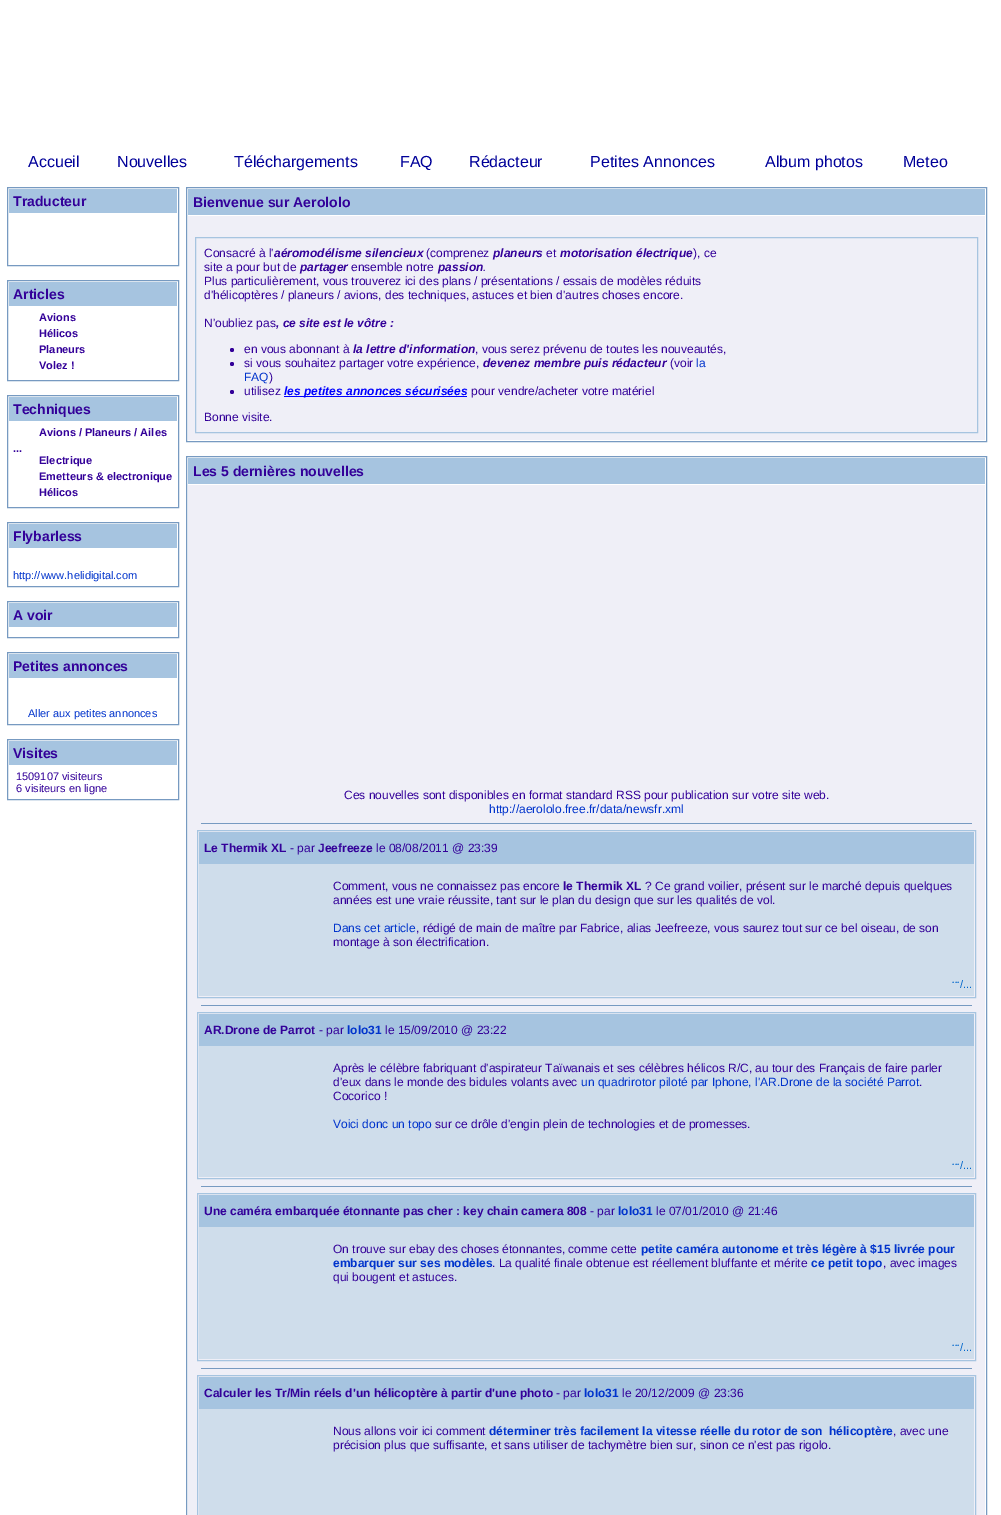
%!PS
<< /PageSize [1001 1515] >> setpagedevice
/f/fill load def
/C { dup -16 bitshift 255 div exch dup -8 bitshift 255 and 255 div exch 255 and 255 div setrgbcolor } def
/F { [ exch dup neg 0 0 3 -1 roll 0 0 ] selectfont } def
/T { moveto show } def
/R { rectfill } def
/O { newpath 0 360 arc closepath } def
0 1515 translate 1 -1 scale
4 setmiterlimit
16#FFFFFF C
0 0 1001 1515 R
/LiberationSans-Regular 16 F
16#000099 C
(Accueil) 28 167 T
(Nouvelles) 117 167 T
(Téléchargements) 234 167 T
(FAQ) 400 167 T
(Rédacteur) 469 167 T
(Petites Annonces) 590 167 T
(Album photos) 765 167 T
(Meteo) 903 167 T
16#779AC1 C
7.5 187.5 171 78 rectstroke
16#A6C4E0 C
9 189 168 24 R
/LiberationSans-Bold 14 F
16#330099 C
(Traducteur) 13 206 T
16#779AC1 C
7.5 280.5 171 100 rectstroke
16#A6C4E0 C
9 282 168 24 R
16#330099 C
(Articles) 13 299 T
/LiberationSans-Bold 11 F
(Avions) 39 321 T
(Hélicos) 39 337 T
(Planeurs) 39 353 T
(Volez !) 39 369 T
16#779AC1 C
7.5 395.5 171 112 rectstroke
16#A6C4E0 C
9 397 168 24 R
/LiberationSans-Bold 14 F
16#330099 C
(Techniques) 13 414 T
/LiberationSans-Bold 11 F
(Avions / Planeurs / Ailes) 39 436 T
(...) 13 452 T
(Electrique) 39 464 T
(Emetteurs & electronique) 39 480 T
(Hélicos) 39 496 T
16#779AC1 C
7.5 522.5 171 64 rectstroke
16#A6C4E0 C
9 524 168 24 R
/LiberationSans-Bold 14 F
16#330099 C
(Flybarless) 13 541 T
/LiberationSans-Regular 11 F
16#0033CC C
(http://www.helidigital.com) 13 579 T
16#779AC1 C
7.5 601.5 171 36 rectstroke
16#A6C4E0 C
9 603 168 24 R
/LiberationSans-Bold 14 F
16#330099 C
(A voir) 13 620 T
16#779AC1 C
7.5 652.5 171 72 rectstroke
16#A6C4E0 C
9 654 168 24 R
16#330099 C
(Petites annonces) 13 671 T
/LiberationSans-Regular 11 F
16#0033CC C
(Aller aux petites annonces) 28 717 T
16#779AC1 C
7.5 739.5 171 60 rectstroke
16#A6C4E0 C
9 741 168 24 R
/LiberationSans-Bold 14 F
16#330099 C
(Visites) 13 758 T
/LiberationSans-Regular 11 F
(1509107 visiteurs) 16 780 T
(6 visiteurs en ligne) 16 792 T
16#779AC1 C
186.5 187.5 800 254 rectstroke
16#A6C4E0 C
188 189 797 26 R
/LiberationSans-Bold 14 F
16#330099 C
(Bienvenue sur Aerololo) 193 207 T
16#EFEFF7 C
188 216 797 224 R
16#A6C4E0 C
195.5 237.5 782 195 rectstroke
/LiberationSans-Regular 12 F
16#330099 C
(Consacré à l') 204 257 T
/LiberationSans-BoldItalic 12 F
(aéromodélisme silencieux) 274 257 T
/LiberationSans-Regular 12 F
(\(comprenez) 426 257 T
/LiberationSans-BoldItalic 12 F
(planeurs) 493 257 T
/LiberationSans-Regular 12 F
(et) 546 257 T
/LiberationSans-BoldItalic 12 F
(motorisation électrique) 560 257 T
/LiberationSans-Regular 12 F
(\), ce) 693 257 T
(site a pour but de) 204 271 T
/LiberationSans-BoldItalic 12 F
(partager) 300 271 T
/LiberationSans-Regular 12 F
(ensemble notre) 351 271 T
/LiberationSans-BoldItalic 12 F
(passion) 438 271 T
/LiberationSans-Italic 12 F
(.) 483 271 T
/LiberationSans-Regular 12 F
(Plus particulièrement, vous trouverez ici des plans / présentations / essais de modèles réduits) 204 285 T
(d'hélicoptères / planeurs / avions, des techniques, astuces et bien d'autres choses encore.) 204 299 T
(N'oubliez pas) 204 327 T
/LiberationSans-BoldItalic 12 F
(, ce site est le vôtre :) 276 327 T
232 350 2 O f
/LiberationSans-Regular 12 F
(en vous abonnant à) 244 353 T
/LiberationSans-BoldItalic 12 F
(la lettre d'information) 353 353 T
/LiberationSans-Regular 12 F
(, vous serez prévenu de toutes les nouveautés,) 475 353 T
232 364 2 O f
(si vous souhaitez partager votre expérience,) 244 367 T
/LiberationSans-BoldItalic 12 F
(devenez membre puis rédacteur) 483 367 T
/LiberationSans-Regular 12 F
(\(voir) 670 367 T
16#0033CC C
(la) 696 367 T
(FAQ) 244 381 T
16#330099 C
(\)) 269 381 T
232 392 2 O f
(utilisez) 244 395 T
16#0000FF C
284 396 183 1 R
/LiberationSans-BoldItalic 12 F
(les petites annonces sécurisées) 284 395 T
/LiberationSans-Regular 12 F
16#330099 C
(pour vendre/acheter votre matériel) 471 395 T
(Bonne visite.) 204 421 T
16#779AC1 C
186.5 456.5 800 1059 rectstroke
16#A6C4E0 C
188 458 797 26 R
/LiberationSans-Bold 14 F
16#330099 C
(Les 5 dernières nouvelles) 193 476 T
16#EFEFF7 C
188 485 797 1030 R
/LiberationSans-Regular 12 F
16#330099 C
(Ces nouvelles sont disponibles en format standard RSS pour publication sur votre site web.) 344 799 T
16#0033CC C
(http://aerololo.free.fr/data/newsfr.xml) 489 813 T
16#779AC1 C
201 823 771 1 R
16#A6C4E0 C
197.5 830.5 778 167 rectstroke
199 832 775 32 R
/LiberationSans-Bold 12 F
16#330099 C
(Le Thermik XL) 204 852 T
/LiberationSans-Regular 12 F
(- par) 290 852 T
/LiberationSans-Bold 12 F
(Jeefreeze) 318 852 T
/LiberationSans-Regular 12 F
(le 08/08/2011 @ 23:39) 376 852 T
16#CFDDEB C
199 864 775 132 R
16#330099 C
(Comment, vous ne connaissez pas encore) 333 890 T
/LiberationSans-Bold 12 F
(le Thermik XL) 563 890 T
/LiberationSans-Regular 12 F
(? Ce grand voilier, présent sur le marché depuis quelques) 645 890 T
(années est une vraie réussite, tant sur le plan du design que sur les qualités de vol.) 333 904 T
16#0033CC C
(Dans cet article) 333 932 T
16#330099 C
(, rédigé de main de maître par Fabrice, alias Jeefreeze, vous saurez tout sur ce bel oiseau, de son) 416 932 T
(montage à son électrification.) 333 946 T
/LiberationSans-Bold 9 F
16#0066CC C
(...) 952 983 T
/LiberationSans-Regular 11 F
(/...) 960 988 T
16#779AC1 C
201 1005 771 1 R
16#A6C4E0 C
197.5 1012.5 778 166 rectstroke
199 1014 775 32 R
/LiberationSans-Bold 12 F
16#330099 C
(AR.Drone de Parrot) 204 1034 T
/LiberationSans-Regular 12 F
(- par) 319 1034 T
/LiberationSans-Bold 12 F
16#0033CC C
(lolo31) 347 1034 T
/LiberationSans-Regular 12 F
16#330099 C
(le 15/09/2010 @ 23:22) 385 1034 T
16#CFDDEB C
199 1046 775 131 R
16#330099 C
(Après le célèbre fabriquant d'aspirateur Taïwanais et ses célèbres hélicos R/C, au tour des Français de faire parler) 333 1072 T
(d'eux dans le monde des bidules volants avec) 333 1086 T
16#0033CC C
(un quadrirotor piloté par Iphone, l'AR.Drone de la société Parrot) 581 1086 T
16#330099 C
(.) 919 1086 T
(Cocorico !) 333 1100 T
16#0033CC C
(Voici donc un topo) 333 1128 T
16#330099 C
(sur ce drôle d'engin plein de technologies et de promesses.) 435 1128 T
/LiberationSans-Bold 9 F
16#0066CC C
(...) 952 1165 T
/LiberationSans-Regular 11 F
(/...) 960 1169 T
16#779AC1 C
201 1186 771 1 R
16#A6C4E0 C
197.5 1193.5 778 167 rectstroke
199 1195 775 32 R
/LiberationSans-Bold 12 F
16#330099 C
(Une caméra embarquée étonnante pas cher : key chain camera 808) 204 1215 T
/LiberationSans-Regular 12 F
(- par) 590 1215 T
/LiberationSans-Bold 12 F
16#0033CC C
(lolo31) 618 1215 T
/LiberationSans-Regular 12 F
16#330099 C
(le 07/01/2010 @ 21:46) 656 1215 T
16#CFDDEB C
199 1227 775 132 R
16#330099 C
(On trouve sur ebay des choses étonnantes, comme cette) 333 1253 T
/LiberationSans-Bold 12 F
16#0033CC C
(petite caméra autonome et très légère à $15 livrée pour) 641 1253 T
(embarquer sur ses modèles) 333 1267 T
/LiberationSans-Regular 12 F
16#330099 C
(. La qualité finale obtenue est réellement bluffante et mérite) 492 1267 T
/LiberationSans-Bold 12 F
16#0033CC C
(ce petit topo) 811 1267 T
/LiberationSans-Regular 12 F
16#330099 C
(, avec images) 883 1267 T
(qui bougent et astuces.) 333 1281 T
/LiberationSans-Bold 9 F
16#0066CC C
(...) 952 1346 T
/LiberationSans-Regular 11 F
(/...) 960 1351 T
16#779AC1 C
201 1368 771 1 R
16#A6C4E0 C
197.5 1375.5 778 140 rectstroke
199 1377 775 32 R
/LiberationSans-Bold 12 F
16#330099 C
(Calculer les Tr/Min réels d'un hélicoptère à partir d'une photo) 204 1397 T
/LiberationSans-Regular 12 F
(- par) 556 1397 T
/LiberationSans-Bold 12 F
16#0033CC C
(lolo31) 584 1397 T
/LiberationSans-Regular 12 F
16#330099 C
(le 20/12/2009 @ 23:36) 622 1397 T
16#CFDDEB C
199 1409 775 106 R
16#330099 C
(Nous allons voir ici comment) 333 1435 T
/LiberationSans-Bold 12 F
16#0033CC C
(déterminer très facilement la vitesse réelle du rotor de son  hélicoptère) 489 1435 T
/LiberationSans-Regular 12 F
16#330099 C
(, avec une) 893 1435 T
(précision plus que suffisante, et sans utiliser de tachymètre bien sur, sinon ce n'est pas rigolo.) 333 1449 T
showpage
